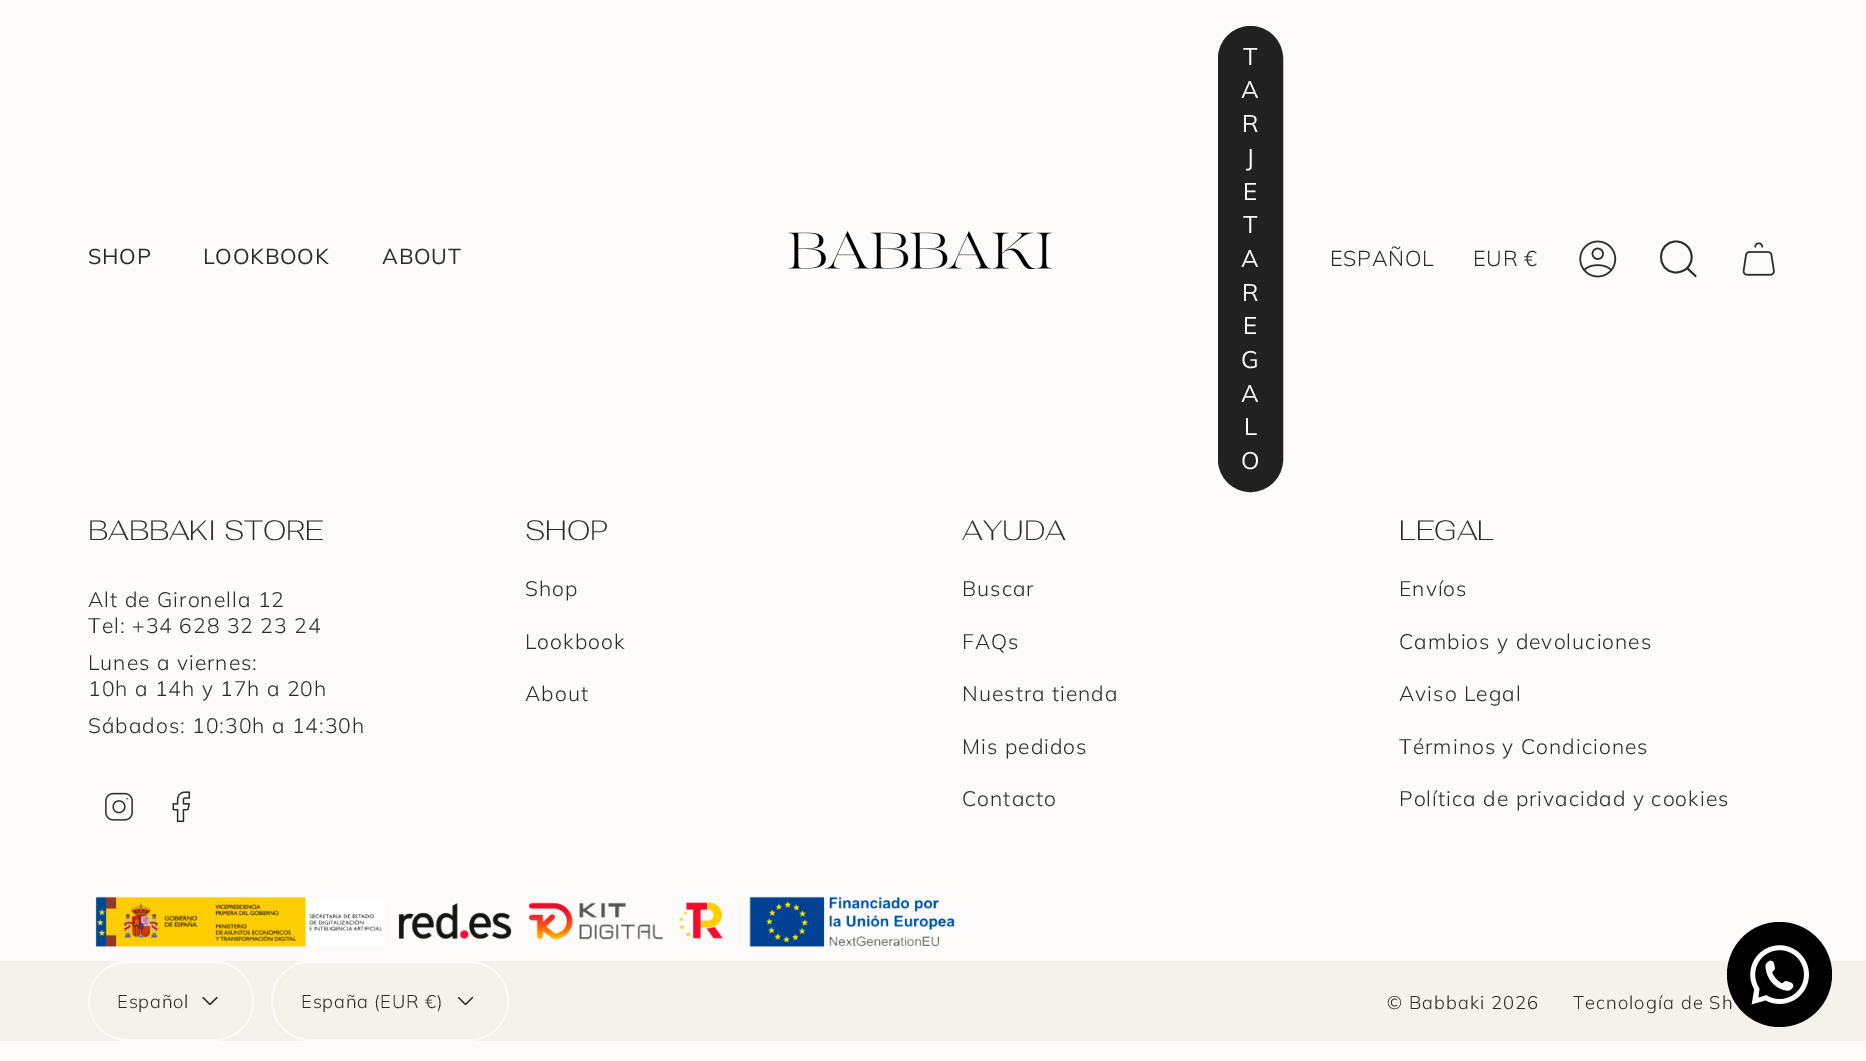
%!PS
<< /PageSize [1866 1061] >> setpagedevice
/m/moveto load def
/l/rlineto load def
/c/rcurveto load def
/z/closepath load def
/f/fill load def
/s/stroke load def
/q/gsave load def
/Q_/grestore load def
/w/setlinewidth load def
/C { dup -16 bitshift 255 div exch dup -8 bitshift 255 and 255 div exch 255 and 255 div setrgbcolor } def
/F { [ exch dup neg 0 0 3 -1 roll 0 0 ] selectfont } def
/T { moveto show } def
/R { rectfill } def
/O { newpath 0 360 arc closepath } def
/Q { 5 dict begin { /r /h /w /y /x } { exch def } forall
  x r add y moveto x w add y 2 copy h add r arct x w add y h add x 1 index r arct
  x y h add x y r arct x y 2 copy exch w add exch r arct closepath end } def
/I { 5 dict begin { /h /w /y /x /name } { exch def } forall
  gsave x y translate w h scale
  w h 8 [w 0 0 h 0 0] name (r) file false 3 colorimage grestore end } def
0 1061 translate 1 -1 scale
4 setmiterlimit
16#FCFBF9 C
0 0 1866 1061 R
/Muli-Regular 21.5 F
16#2B2B2B C
88 264 m .75 0 (SHOP) ashow
203 264 m .75 0 (LOOKBOOK) ashow
382 264 m .75 0 (ABOUT) ashow
(1.rgb) 788 231 264 39 I
16#212121 C
1219 27 63 464 31.5 Q q f Q_
2 w
s
/Muli-Regular 24 F
16#FEFEFE C
1243 65 m 1 0 (T) ashow
1241 98 m 1 0 (A) ashow
1242 132 m 1 0 (R) ashow
1246 166 m 1 0 (J) ashow
1243 200 m 1 0 (E) ashow
1243 233 m 1 0 (T) ashow
1241 267 m 1 0 (A) ashow
1242 301 m 1 0 (R) ashow
1243 334 m 1 0 (E) ashow
1241 368 m 1 0 (G) ashow
1241 402 m 1 0 (A) ashow
1244 435 m 1 0 (L) ashow
1241 469 m 1 0 (O) ashow
/Muli-Light 21.5 F
16#2B2B2B C
1330 266 m .75 0 (ESPAÑOL) ashow
1473 266 m .75 0 (EUR €) ashow
(2.rgb) 1579 240 38 38 I
1.8 w
1676 241.5 m 15 0 21.5 19 9.5 28 c -3 2 -6.5 3 -10 3 c -20 -1 -19 -31 .5 -31 c z 1687 268 m 9 8.5 l s
(3.rgb) 1742 242 33 34 I
/Fahkwang-Light 28 F
(BABBAKI STORE) 88 540 T
/Muli-Light 21 F
88 607 m 1.05 0 (Alt de Gironella 12) ashow
88 633 m 1.05 0 (Tel: +34 628 32 23 24) ashow
88 670 m 1.05 0 (Lunes a viernes:) ashow
88 696 m 1.05 0 (10h a 14h y 17h a 20h) ashow
88 733 m 1.05 0 (Sábados: 10:30h a 14:30h) ashow
(4.rgb) 105 792 28 29 I
(5.rgb) 172 791 19 32 I
/Fahkwang-Light 28 F
(SHOP) 525 540 T
/Muli-Light 21 F
525 596 m 1.05 0 (Shop) ashow
525 649 m 1.05 0 (Lookbook) ashow
525 701 m 1.05 0 (About) ashow
/Fahkwang-Light 28 F
(AYUDA) 962 540 T
/Muli-Light 21 F
962 596 m 1.05 0 (Buscar) ashow
962 649 m 1.05 0 (FAQs) ashow
962 701 m 1.05 0 (Nuestra tienda) ashow
962 754 m 1.05 0 (Mis pedidos) ashow
962 806 m 1.05 0 (Contacto) ashow
/Fahkwang-Light 28 F
(LEGAL) 1399 540 T
/Muli-Light 21 F
1399 596 m 1.05 0 (Envíos) ashow
1399 649 m 1.05 0 (Cambios y devoluciones) ashow
1399 701 m 1.05 0 (Aviso Legal) ashow
1399 754 m 1.05 0 (Términos y Condiciones) ashow
1399 806 m 1.05 0 (Política de privacidad y cookies) ashow
(6.rgb) 95 896 860 51 I
16#F5F2EC C
0 961 1866 80 R
16#FCFBF9 C
2 w
89 962 164 78 38 Q s
/Muli-Light 18.4 F
16#2B2B2B C
117 1008 m .75 0 (Español) ashow
1.2 w
1 setlinecap
1 setlinejoin
203 997.5 m 7 7 l 7 -7 l s
16#FCFBF9 C
2 w
0 setlinecap
0 setlinejoin
272 962 236 78 38 Q s
16#2B2B2B C
301 1008 m .75 0 (España \(EUR €\)) ashow
1.2 w
1 setlinecap
1 setlinejoin
458.5 997.5 m 7 7 l 7 -7 l s
1387 1009 m 1.05 0 (© Babbaki 2026) ashow
1573 1009 m 1.05 0 (Tecnología de Sh) ashow
16#000000 C
1779.5 974.5 52.5 O f
(7.rgb) 1750 945 59 60 I
showpage
